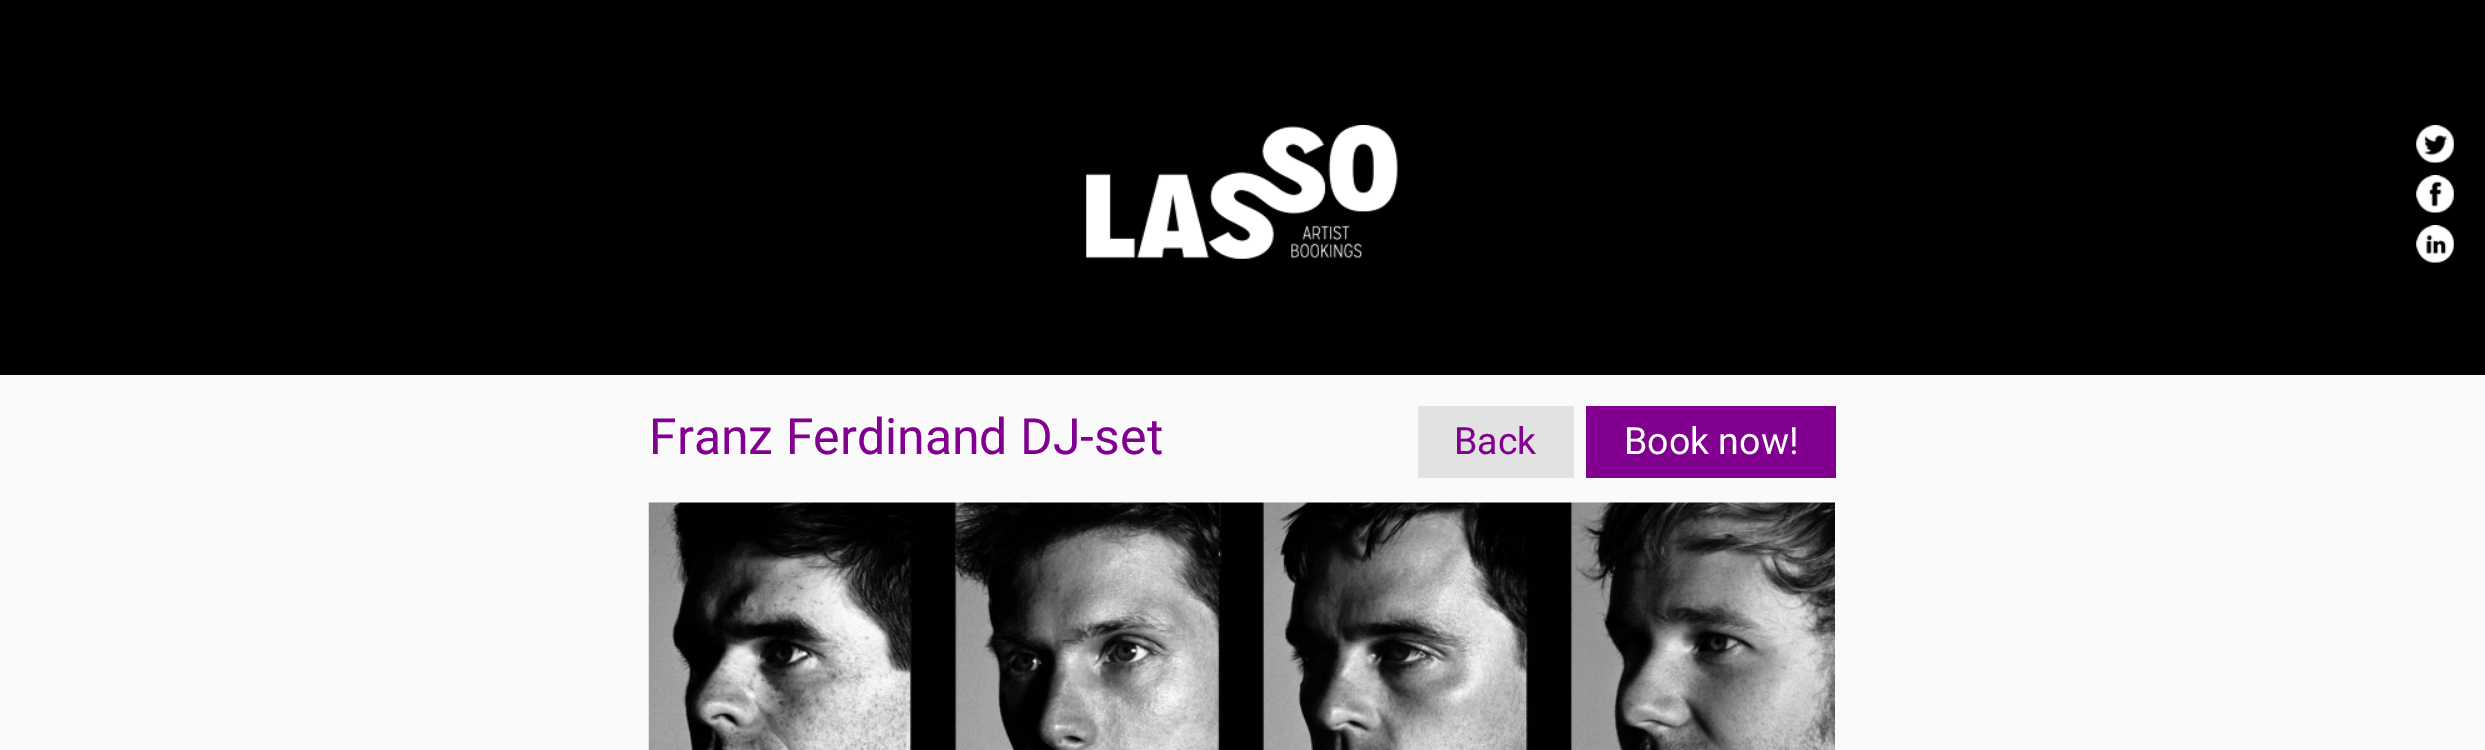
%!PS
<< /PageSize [2485 750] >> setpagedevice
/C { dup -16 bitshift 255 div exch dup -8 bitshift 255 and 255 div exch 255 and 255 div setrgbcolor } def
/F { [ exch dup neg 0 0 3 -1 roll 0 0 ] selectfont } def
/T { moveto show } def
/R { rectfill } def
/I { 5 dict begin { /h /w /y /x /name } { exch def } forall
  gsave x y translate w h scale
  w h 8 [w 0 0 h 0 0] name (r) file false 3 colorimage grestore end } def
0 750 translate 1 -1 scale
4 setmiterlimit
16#FAFAFA C
0 0 2485 750 R
16#000000 C
0 0 2485 375 R
(1.rgb) 1086 125 312 134 I
(2.rgb) 2416 125 38 38 I
(3.rgb) 2416 175 38 38 I
(4.rgb) 2416 225 38 38 I
/Roboto-Regular 50 F
16#82008F C
(Franz Ferdinand DJ-set) 649 454 T
16#E2E2E2 C
1418 406 156 72 R
/Roboto-Regular 37.5 F
16#82008F C
(Back) 1454 454 T
1586 406 250 72 R
16#FFFFFF C
(Book now!) 1624 454 T
(5.rgb) 648 502 1187 248 I
showpage
